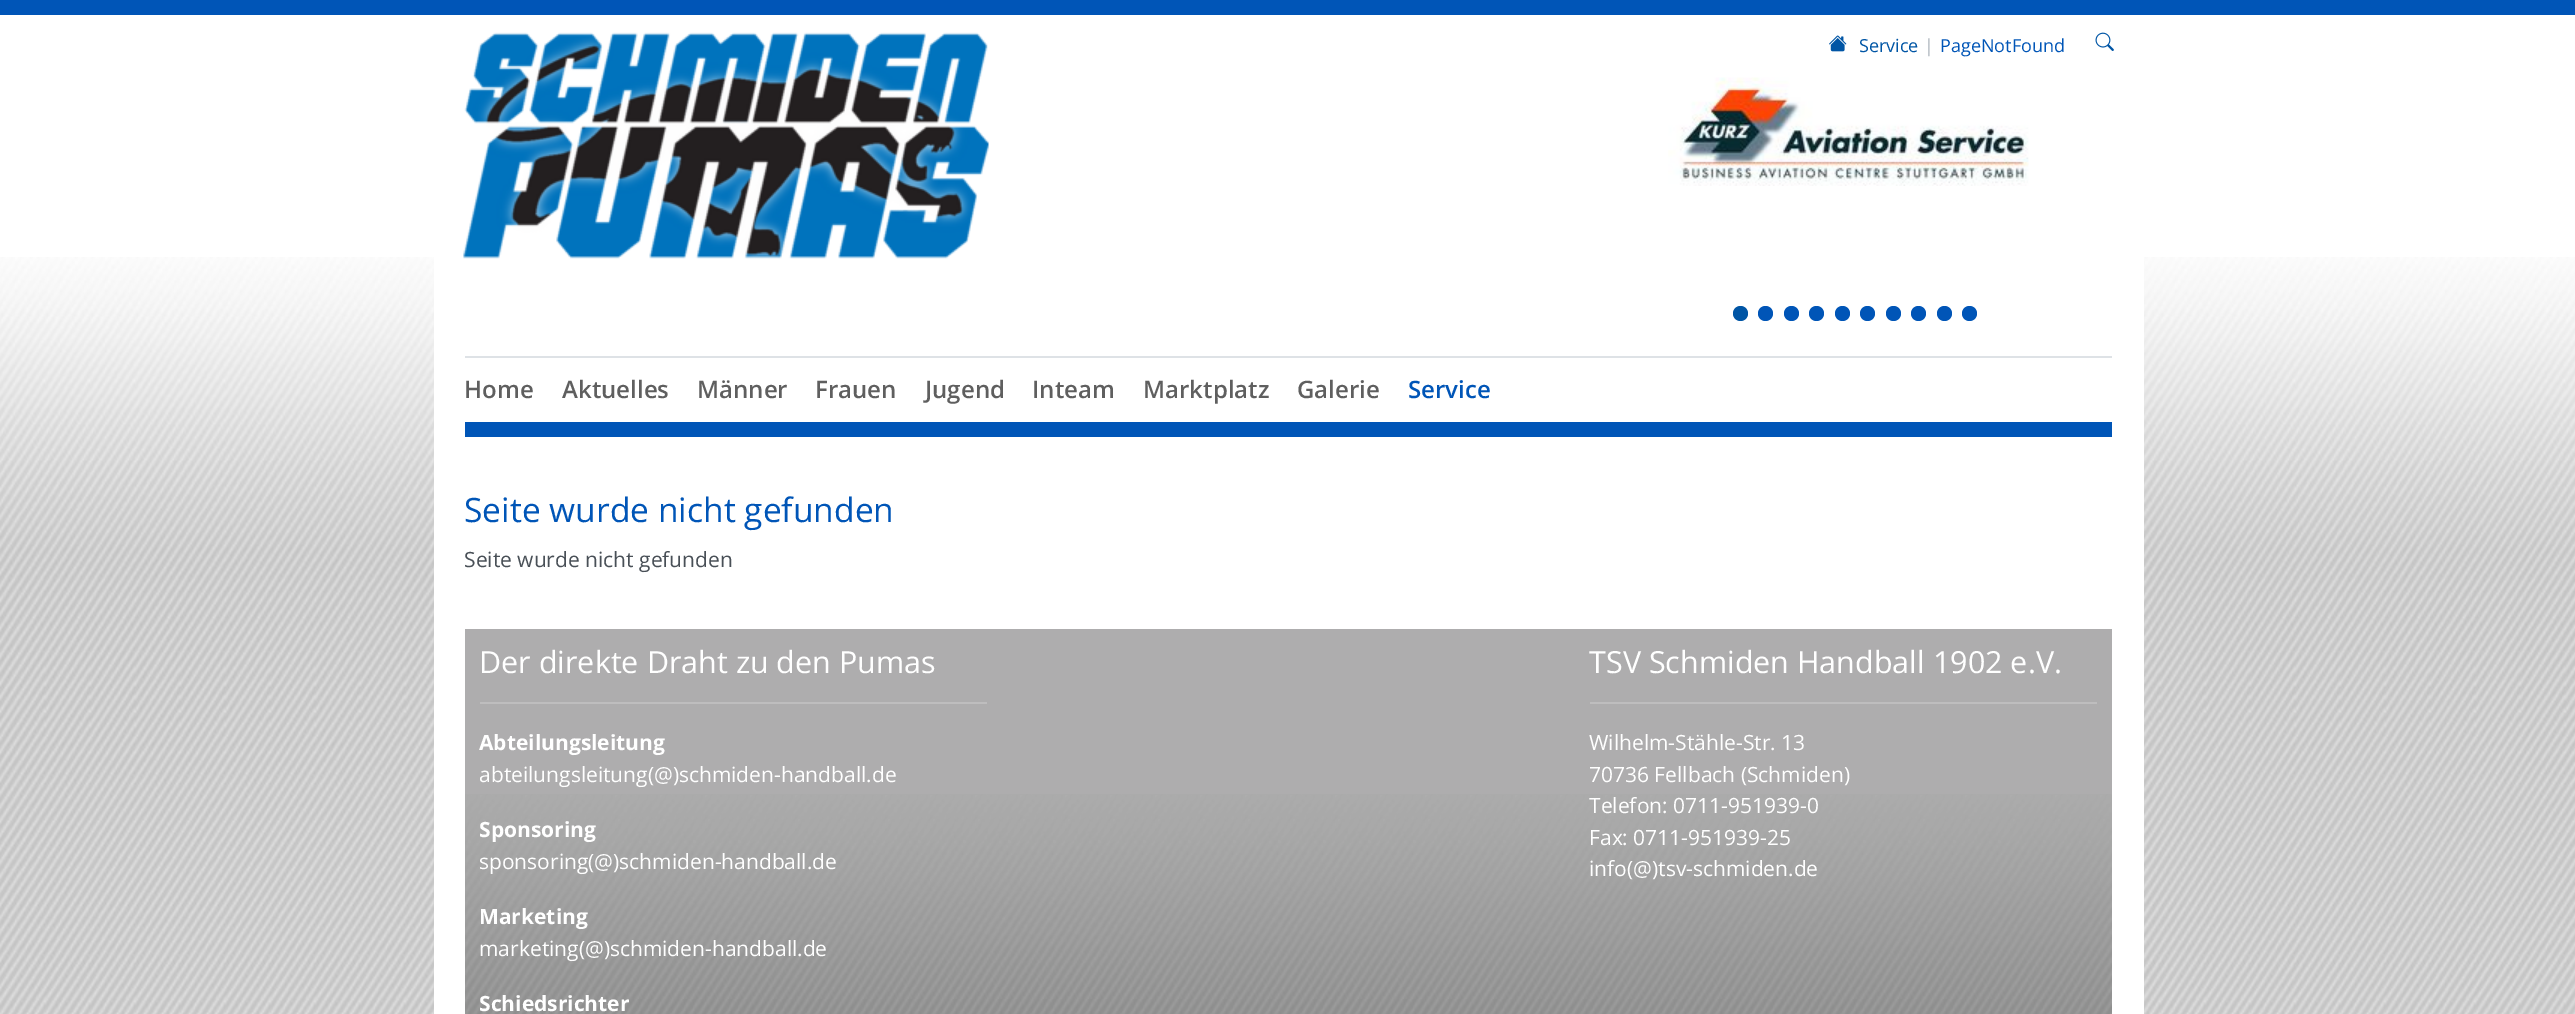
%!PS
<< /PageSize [2575 1014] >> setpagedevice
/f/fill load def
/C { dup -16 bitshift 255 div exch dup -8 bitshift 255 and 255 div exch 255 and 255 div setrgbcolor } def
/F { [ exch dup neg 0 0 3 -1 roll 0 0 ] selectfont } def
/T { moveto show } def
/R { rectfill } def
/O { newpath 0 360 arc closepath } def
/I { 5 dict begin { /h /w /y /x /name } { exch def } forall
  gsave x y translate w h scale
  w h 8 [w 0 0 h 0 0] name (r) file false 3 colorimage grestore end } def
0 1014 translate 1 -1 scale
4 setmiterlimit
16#FFFFFF C
0 0 2575 1014 R
(1.rgb) 0 257 2575 757 I
16#0055B7 C
0 0 2575 15 R
16#FFFFFF C
434 257 1710 757 R
(2.rgb) 463 32 526 227 I
(3.rgb) 1668 77 361 109 I
16#0055A5 C
1740.5 313.5 7.5 O f
16#0055B7 C
1765.5 313.5 7.5 O f
1791.5 313.5 7.5 O f
1816.5 313.5 7.5 O f
1842.5 313.5 7.5 O f
1867.5 313.5 7.5 O f
1893.5 313.5 7.5 O f
1918.5 313.5 7.5 O f
1944.5 313.5 7.5 O f
1969.5 313.5 7.5 O f
(4.rgb) 1829 35 18 17 I
/OpenSans-Regular 18 F
16#0055A5 C
(Service) 1859 52 T
16#ADB5BD C
(|) 1924 52 T
16#0055B7 C
(PageNotFound) 1940 52 T
(5.rgb) 2095 32 19 19 I
16#DEE2E6 C
465 356 1647 2 R
/OpenSans-SemiBold 24 F
16#5F5F5F C
(Home) 464 398 T
(Aktuelles) 562 398 T
(Männer) 697 398 T
(Frauen) 815 398 T
(Jugend) 925 398 T
(Inteam) 1032 398 T
(Marktplatz) 1143 398 T
(Galerie) 1297 398 T
16#0055B7 C
(Service) 1408 398 T
465 422 1647 15 R
/OpenSans-Regular 33.6 F
(Seite wurde nicht gefunden) 464 522 T
/OpenSans-Regular 21 F
16#495057 C
(Seite wurde nicht gefunden) 464 567 T
16#AEADAE C
465 629 1647 385 R
(6.rgb) 465 794 1647 220 I
16#BEBDBE C
480 702 507 2 R
/OpenSans-Regular 30.5 F
16#FFFFFF C
(Der direkte Draht zu den Pumas) 479 673 T
/OpenSans-Bold 21 F
(Abteilungsleitung) 479 750 T
/OpenSans-Regular 21 F
(abteilungsleitung\(@\)schmiden-handball.de) 479 782 T
/OpenSans-Bold 21 F
(Sponsoring) 479 837 T
/OpenSans-Regular 21 F
(sponsoring\(@\)schmiden-handball.de) 479 869 T
/OpenSans-Bold 21 F
(Marketing) 479 924 T
/OpenSans-Regular 21 F
(marketing\(@\)schmiden-handball.de) 479 956 T
/OpenSans-Bold 21 F
(Schiedsrichter) 479 1011 T
16#BEBDBE C
1590 702 507 2 R
/OpenSans-Regular 30.5 F
16#FFFFFF C
(TSV Schmiden Handball 1902 e.V.) 1589 673 T
/OpenSans-Regular 21 F
(Wilhelm-Stähle-Str. 13) 1589 750 T
(70736 Fellbach \(Schmiden\)) 1589 782 T
(Telefon: 0711-951939-0) 1589 813 T
(Fax: 0711-951939-25) 1589 845 T
(info\(@\)tsv-schmiden.de) 1589 876 T
showpage
